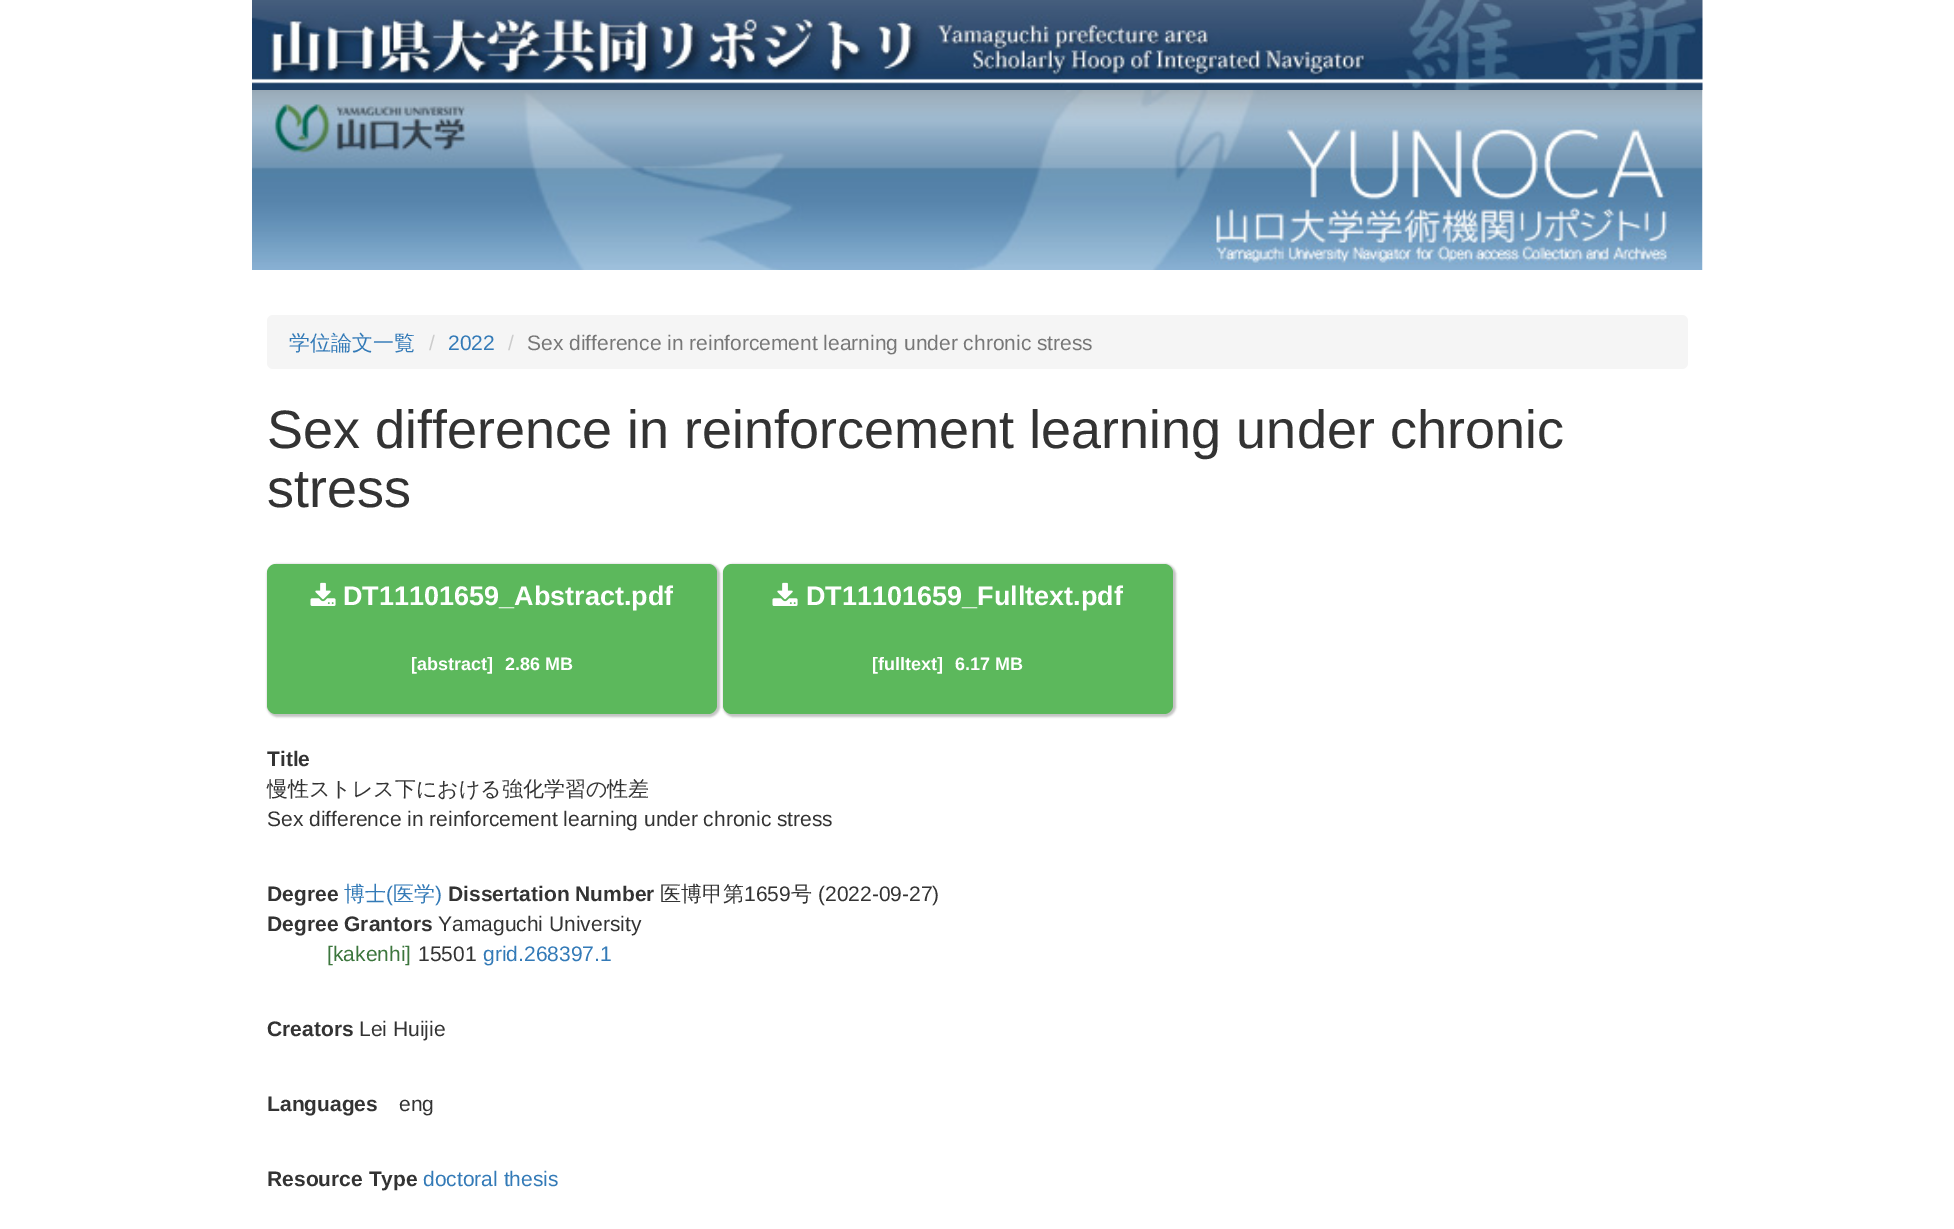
%!PS
<< /PageSize [1954 1229] /PageUsesTransparency true >> setpagedevice
/f/fill load def
/C { dup -16 bitshift 255 div exch dup -8 bitshift 255 and 255 div exch 255 and 255 div setrgbcolor } def
/F { [ exch dup neg 0 0 3 -1 roll 0 0 ] selectfont } def
/T { moveto show } def
/R { rectfill } def
/A { dup .setfillconstantalpha .setstrokeconstantalpha } def
/Q { 5 dict begin { /r /h /w /y /x } { exch def } forall
  x r add y moveto x w add y 2 copy h add r arct x w add y h add x 1 index r arct
  x y h add x y r arct x y 2 copy exch w add exch r arct closepath end } def
/S { 12 dict begin { /a /b /q /h /w /y /x } { exch def } forall gsave /was 0 def
  9 -2 -9 { dup b mul 4 div /e exch def 1 sub .425 mul 2.718 exch exp 1 add a .99 .min exch div /now exch def
    1 1 now sub 1 was sub div sub A /was now def
    w h .min e 2 mul add 0 gt { x e sub y e sub w e 2 mul add h e 2 mul add
      q e add b .6 mul add w h .min 2 div e add .min 0 .max Q fill } if } for grestore end } def
/I { 5 dict begin { /h /w /y /x /name } { exch def } forall
  gsave x y translate w h scale
  w h 8 [w 0 0 h 0 0] name (r) file false 3 colorimage grestore end } def
0 .pushpdf14devicefilter
0 1229 translate 1 -1 scale
4 setmiterlimit
16#FFFFFF C
0 0 1954 1229 R
(1.rgb) 252 0 1451 90 I
(2.rgb) 252 90 1451 180 I
16#F5F5F5 C
267 315 1421 54 6 Q f
/WenQuanYiZenHei-Medium 21 F
16#337AB7 C
(学位論文一覧) 289 350 T
/LiberationSans-Regular 21 F
16#CCCCCC C
(/) 429 350 T
16#337AB7 C
(2022) 448 350 T
16#CCCCCC C
(/) 508 350 T
16#777777 C
(Sex difference in reinforcement learning under chronic stress) 527 350 T
/LiberationSans-Regular 54 F
16#333333 C
(Sex difference in reinforcement learning under chronic) 267 448 T
(stress) 267 507 T
16#C2C2C2 C
267 564 453 153 11 1 1 S
16#5CB85C C
267 564 450 150 9 Q f
(3.rgb) 310 582 26 24 I
/LiberationSans-Bold 27 F
16#FFFFFF C
(DT11101659_Abstract.pdf) 343 605 T
/LiberationSans-Bold 18 F
([abstract]) 411 670 T
(2.86 MB) 505 670 T
16#C2C2C2 C
723 564 453 153 11 1 1 S
16#5CB85C C
723 564 450 150 9 Q f
(3.rgb) 772 582 26 24 I
/LiberationSans-Bold 27 F
16#FFFFFF C
(DT11101659_Fulltext.pdf) 806 605 T
/LiberationSans-Bold 18 F
([fulltext]) 872 670 T
(6.17 MB) 955 670 T
/LiberationSans-Bold 21 F
16#333333 C
(Title) 267 766 T
/WenQuanYiZenHei-Medium 21 F
(慢性ストレス下における強化学習の性差) 267 796 T
/LiberationSans-Regular 21 F
(Sex difference in reinforcement learning under chronic stress) 267 826 T
/LiberationSans-Bold 21 F
(Degree) 267 901 T
/WenQuanYiZenHei-Medium 21 F
16#337AB7 C
(博士) 344 901 T
/LiberationSans-Regular 21 F
(\() 386 901 T
/WenQuanYiZenHei-Medium 21 F
(医学) 393 901 T
/LiberationSans-Regular 21 F
(\)) 435 901 T
/LiberationSans-Bold 21 F
16#333333 C
(Dissertation Number) 448 901 T
/WenQuanYiZenHei-Medium 21 F
(医博甲第) 660 901 T
/LiberationSans-Regular 21 F
(1659) 744 901 T
/WenQuanYiZenHei-Medium 21 F
(号) 791 901 T
/LiberationSans-Regular 21 F
(\(2022-09-27\)) 818 901 T
/LiberationSans-Bold 21 F
(Degree Grantors) 267 931 T
/LiberationSans-Regular 21 F
(Yamaguchi University) 438 931 T
16#3C763D C
([kakenhi]) 327 961 T
16#333333 C
(15501) 418 961 T
16#337AB7 C
(grid.268397.1) 483 961 T
/LiberationSans-Bold 21 F
16#333333 C
(Creators) 267 1036 T
/LiberationSans-Regular 21 F
(Lei Huijie) 359 1036 T
/LiberationSans-Bold 21 F
(Languages) 267 1111 T
/LiberationSans-Regular 21 F
(eng) 399 1111 T
/LiberationSans-Bold 21 F
(Resource Type) 267 1186 T
/LiberationSans-Regular 21 F
16#337AB7 C
(doctoral thesis) 423 1186 T
.poppdf14devicefilter showpage
